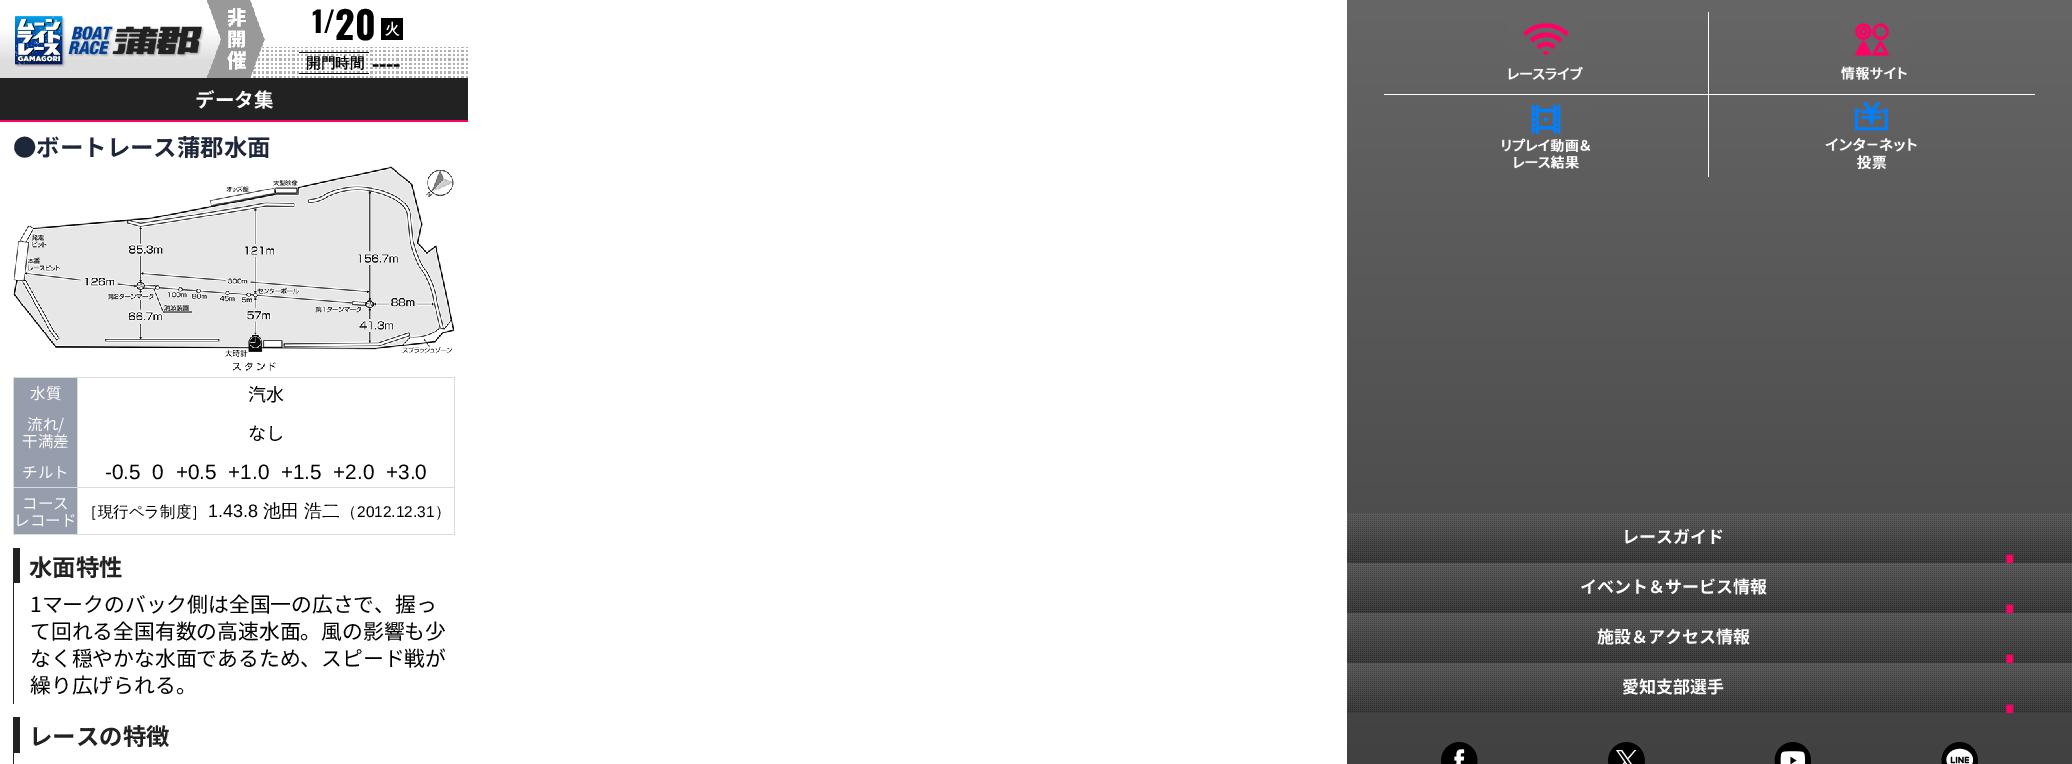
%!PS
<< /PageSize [2072 764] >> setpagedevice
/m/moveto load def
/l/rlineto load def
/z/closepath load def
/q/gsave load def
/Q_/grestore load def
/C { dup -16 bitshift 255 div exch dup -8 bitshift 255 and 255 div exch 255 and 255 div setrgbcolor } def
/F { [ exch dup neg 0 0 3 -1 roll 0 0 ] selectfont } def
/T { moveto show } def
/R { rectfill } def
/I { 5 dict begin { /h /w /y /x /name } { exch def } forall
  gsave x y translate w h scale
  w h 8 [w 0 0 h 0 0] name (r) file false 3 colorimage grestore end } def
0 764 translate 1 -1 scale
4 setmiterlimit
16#FFFFFF C
0 0 2072 764 R
(1.rgb) 0 0 468 78 I
(2.rgb) 15 16 189 51 I
/Oswald-Bold 29 F
16#000000 C
(1/) 312 33 T
/Oswald-Bold 38 F
(20) 335 40 T
381 18 22 22 R
/WenQuanYiZenHei-Bold 14.5 F
16#FFFFFF C
(火) 385 34 T
16#000000 C
299 52 70 1 R
299 73 70 1 R
(開門時間) 306 68 T
/Oswald-Bold 22 F
(----) 372 72 T
16#222222 C
0 78 468 42 R
16#FF0066 C
0 120 468 2 R
/NotoSansJP-Bold 19.5 F
16#FFFFFF C
(データ集) 195 107 T
/NotoSansJP-Bold 23.4 F
16#1E263A C
(●ボートレース蒲郡水面) 13 156 T
(3.rgb) 13 166 442 205 I
16#969DAD C
14 378 63 109 R
16#D7DCE1 C
77 377 378 1 R
77 377 1 31 R
13 377 65 1 R
13 377 1 31 R
/NotoSansJP-Regular 15.5 F
16#FFFFFF C
(水質) 30 399 T
16#D7DCE1 C
454 377 1 31 R
/NotoSansJP-Regular 18 F
16#000000 C
(汽水) 248 401 T
/NotoSansJP-Regular 15.5 F
16#FFFFFF C
(流れ/) 27 430 T
(干満差) 22 447 T
/NotoSansJP-Regular 18 F
16#000000 C
(なし) 248 440 T
/NotoSansJP-Regular 15.5 F
16#FFFFFF C
(チルト) 22 478 T
16#D7DCE1 C
77 487 378 1 R
454 408 1 127 R
77 534 378 1 R
77 487 1 48 R
13 487 65 1 R
77 408 1 80 R
/LiberationSans-Regular 20.8 F
16#000000 C
(-0.5  0  +0.5  +1.0  +1.5  +2.0  +3.0) 105 479 T
16#969DAD C
14 488 63 46 R
16#D7DCE1 C
13 534 65 1 R
13 408 1 127 R
/NotoSansJP-Regular 15.5 F
16#FFFFFF C
(コース) 22 509 T
(レコード) 14 526 T
/WenQuanYiZenHei-Medium 15.5 F
16#000000 C
(［現行ペラ制度］) 82 517 T
/LiberationSans-Regular 18 F
(1.43.8) 208 517 T
/WenQuanYiZenHei-Medium 18 F
(池田 浩二) 263 517 T
/WenQuanYiZenHei-Medium 15.5 F
(（) 341 517 T
/LiberationSans-Regular 15.5 F
(2012.12.31) 357 517 T
/WenQuanYiZenHei-Medium 15.5 F
(）) 435 517 T
16#222222 C
13 548 7 35 R
/NotoSansJP-Bold 23.4 F
(水面特性) 29 576 T
13 583 1 121 R
/NotoSansJP-Regular 20.8 F
16#000000 C
(1マークのバック側は全国一の広さで、握っ) 30 612 T
(て回れる全国有数の高速水面。風の影響も少) 30 639 T
(なく穏やかな水面であるため、スピード戦が) 30 666 T
(繰り広げられる。) 30 693 T
16#222222 C
13 717 7 36 R
/NotoSansJP-Bold 23.4 F
(レースの特徴) 29 745 T
13 753 1 11 R
q 1347 0 m 725 0 l 0 764 l -725 0 l z clip newpath
<< /ShadingType 2 /ColorSpace /DeviceRGB /Coords [1710 0 1710 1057] /Extend [true true] /Function << /FunctionType 2 /Domain [0 1] /C0 [.4 .4 .4] /C1 [.2 .2 .2] /N 1 >> >> shfill Q_
16#FFFFFF C
1708 12 1 165 R
1384 94 651 1 R
(4.rgb) 1508 23 75 57 I
(5.rgb) 1841 23 66 57 I
(6.rgb) 1502 104 89 65 I
(7.rgb) 1825 102 92 68 I
(8.rgb) 1347 513 725 50 I
/NotoSansJP-Bold 17 F
(レースガイド) 1622 543 T
(8.rgb) 1347 563 725 50 I
(イベント＆サービス情報) 1580 593 T
(8.rgb) 1347 613 725 50 I
(施設＆アクセス情報) 1597 643 T
(8.rgb) 1347 663 725 50 I
(愛知支部選手) 1622 693 T
(9.rgb) 1441 742 37 22 I
(10.rgb) 1608 742 37 22 I
(11.rgb) 1774 742 37 22 I
(12.rgb) 1941 742 37 22 I
showpage
